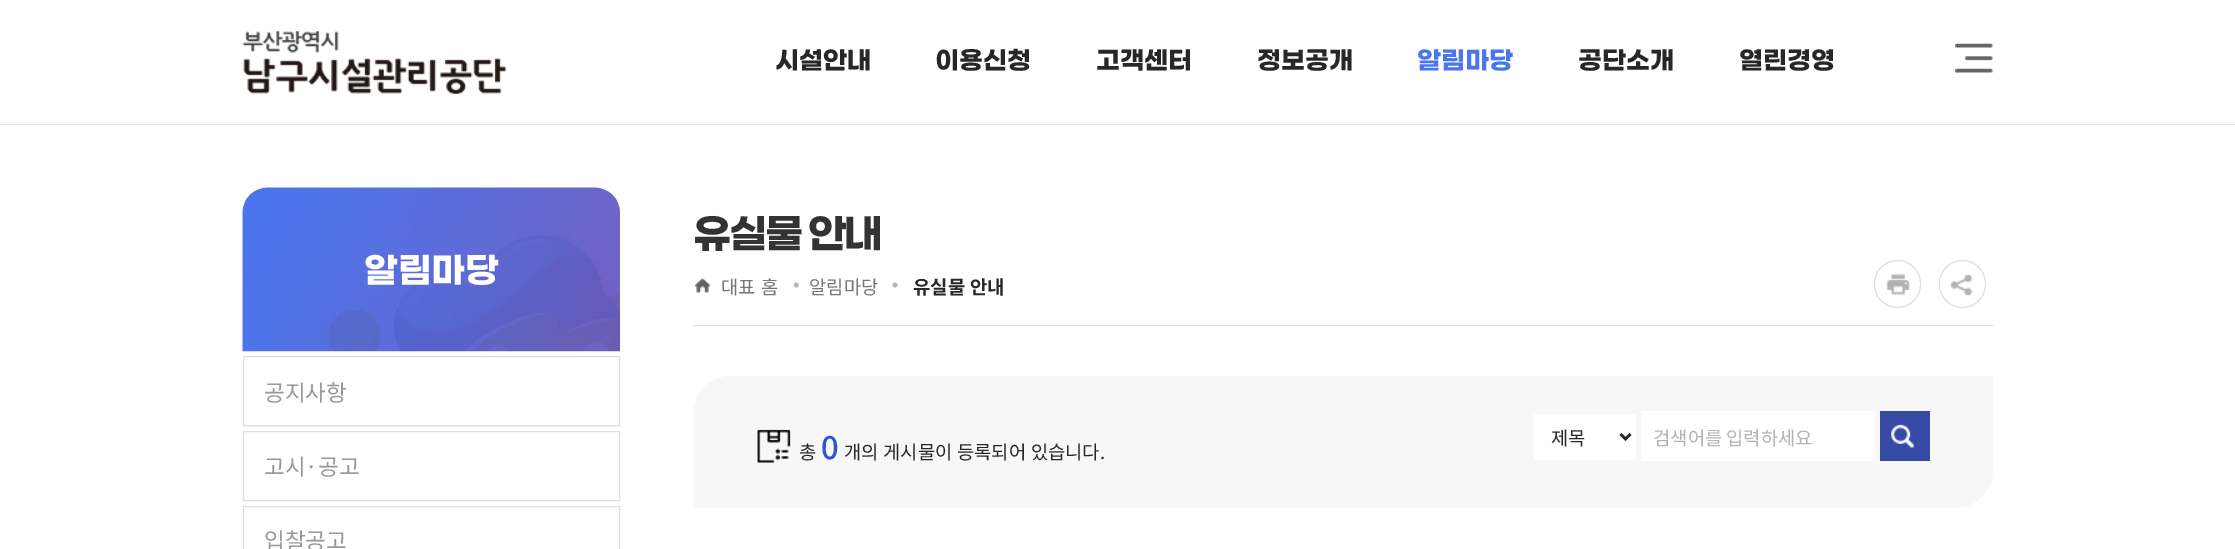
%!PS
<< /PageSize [2235 549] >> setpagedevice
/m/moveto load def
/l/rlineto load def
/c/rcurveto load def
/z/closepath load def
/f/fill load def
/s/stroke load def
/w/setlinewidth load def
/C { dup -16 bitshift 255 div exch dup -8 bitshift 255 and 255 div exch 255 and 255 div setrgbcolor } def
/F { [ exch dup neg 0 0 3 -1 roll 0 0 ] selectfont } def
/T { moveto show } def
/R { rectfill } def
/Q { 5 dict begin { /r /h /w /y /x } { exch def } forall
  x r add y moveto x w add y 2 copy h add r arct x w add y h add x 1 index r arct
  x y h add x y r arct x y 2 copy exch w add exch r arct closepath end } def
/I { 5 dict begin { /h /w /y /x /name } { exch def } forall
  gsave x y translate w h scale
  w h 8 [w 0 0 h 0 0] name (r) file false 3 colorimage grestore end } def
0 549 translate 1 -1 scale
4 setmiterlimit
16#FFFFFF C
0 0 2235 549 R
16#DEDEDE C
0 124 2235 1 R
(1.rgb) 242 31 265 63 I
(2.rgb) 1955 43 38 30 I
/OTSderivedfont-Bold 25 F
16#272727 C
(시설안내) 775 68 T
(이용신청) 935 68 T
(고객센터) 1096 68 T
(정보공개) 1257 68 T
16#4876EE C
(알림마당) 1417 68 T
16#272727 C
(공단소개) 1578 68 T
(열린경영) 1739 68 T
(3.rgb) 242 187 378 165 I
/OTSderivedfont-Bold 35 F
16#FFFFFF C
(알림마당) 364 281 T
16#DDDDDD C
243.5 356.5 376 69 rectstroke
/NotoSansKR-Regular 22.5 F
16#999999 C
(공지사항) 264 401 T
16#DDDDDD C
243.5 431.5 376 69 rectstroke
16#999999 C
(고시·공고) 264 475 T
16#DDDDDD C
243.5 506.5 376 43 rectstroke
16#999999 C
(입찰공고) 264 549 T
16#DEDEDE C
693 325 1300 1 R
/OTSderivedfont-Bold 40 F
16#333333 C
693 246 m -2.5 0 (유실물) ashow
808 246 m -2.5 0 (안내) ashow
(4.rgb) 695 278 16 15 I
/NotoSansKR-Regular 18.75 F
16#777777 C
721 294 m 1 0 32 (대표 홈) widthshow
(5.rgb) 793 282 6 6 I
(알림마당) 809 294 T
(6.rgb) 892 282 6 6 I
/NotoSansKR-Bold 18.75 F
16#272727 C
913 294 m 1 0 32 (유실물 안내) widthshow
(7.rgb) 1886 273 24 22 I
16#DEDEDE C
1874.5 260.5 46 47 23 Q s
(8.rgb) 1950 274 23 22 I
1939.5 260.5 46 47 23 Q s
16#F7F7F7 C
731 376 m 1262 0 l 0 94 l 0 21 -17 38 -38 38 c -1262 0 l 0 -94 l 0 -21 17 -38 38 -38 c z f
(9.rgb) 757 429 34 34 I
/NotoSansKR-Regular 18.75 F
16#272727 C
(총) 799 459 T
/NotoSansKR-Medium 31 F
16#2D55D3 C
(0) 821 459 T
/NotoSansKR-Regular 18.75 F
16#272727 C
844 459 m .5 0 32 (개의 게시물이 등록되어 있습니다.) widthshow
16#FFFFFF C
1534 414 102 46 R
16#272727 C
2.5 w
1620.5 434 m 5 5 l 5 -5 l s
(제목) 1551 445 T
16#FFFFFF C
1641 411 234 50 R
16#B3B3B3 C
(검색어를 입력하세요) 1653 445 T
16#374AA6 C
1880 411 50 50 R
(10.rgb) 1891 424 23 24 I
showpage
